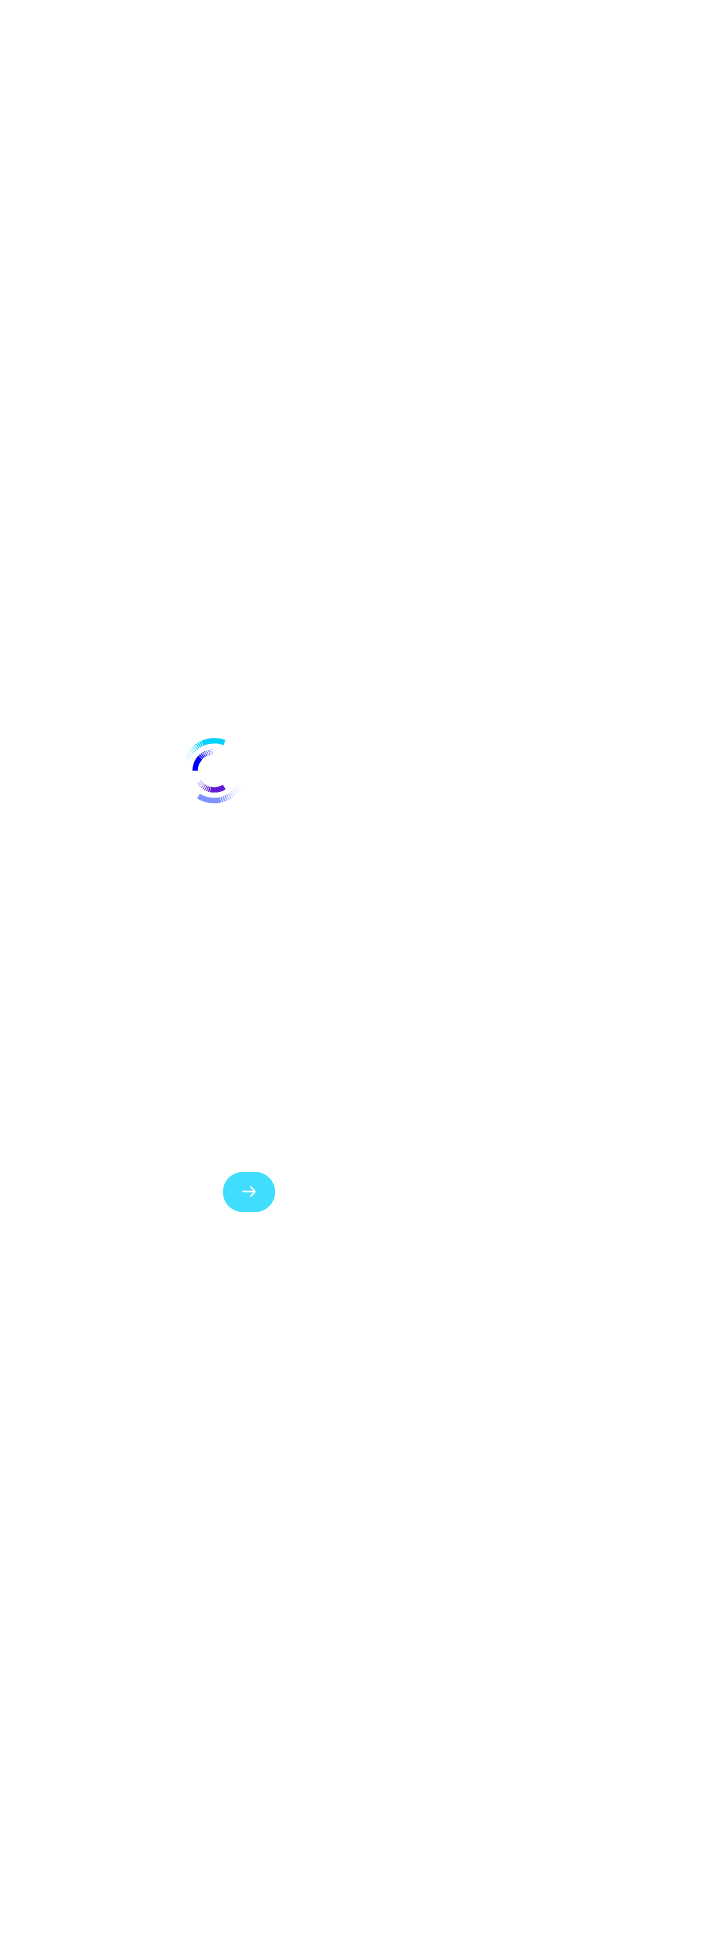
%!PS
<< /PageSize [708 1941] >> setpagedevice
/m/moveto load def
/l/rlineto load def
/f/fill load def
/s/stroke load def
/w/setlinewidth load def
/C { dup -16 bitshift 255 div exch dup -8 bitshift 255 and 255 div exch 255 and 255 div setrgbcolor } def
/R { rectfill } def
/Q { 5 dict begin { /r /h /w /y /x } { exch def } forall
  x r add y moveto x w add y 2 copy h add r arct x w add y h add x 1 index r arct
  x y h add x y r arct x y 2 copy exch w add exch r arct closepath end } def
/I { 5 dict begin { /h /w /y /x /name } { exch def } forall
  gsave x y translate w h scale
  w h 8 [w 0 0 h 0 0] name (r) file false 3 colorimage grestore end } def
0 1941 translate 1 -1 scale
4 setmiterlimit
16#FFFFFF C
0 0 708 1941 R
(1.rgb) 185 738 56 66 I
16#40DDFF C
223 1172 52 40 20 Q f
16#FFFFFF C
1.3 w
250.5 1186.5 m 4.5 5 l 255 1191.5 m -4.5 5 l 255 1191.5 m -12.5 0 l s
showpage
